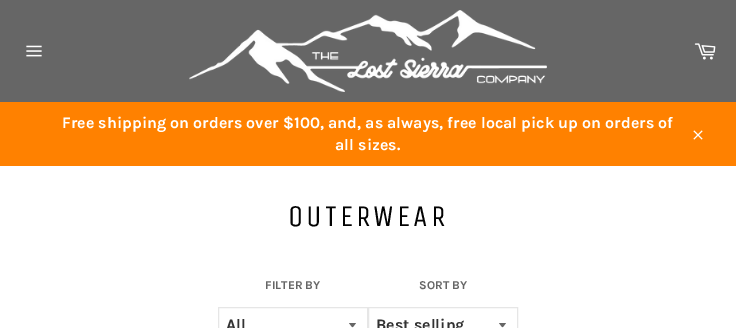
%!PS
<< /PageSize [736 328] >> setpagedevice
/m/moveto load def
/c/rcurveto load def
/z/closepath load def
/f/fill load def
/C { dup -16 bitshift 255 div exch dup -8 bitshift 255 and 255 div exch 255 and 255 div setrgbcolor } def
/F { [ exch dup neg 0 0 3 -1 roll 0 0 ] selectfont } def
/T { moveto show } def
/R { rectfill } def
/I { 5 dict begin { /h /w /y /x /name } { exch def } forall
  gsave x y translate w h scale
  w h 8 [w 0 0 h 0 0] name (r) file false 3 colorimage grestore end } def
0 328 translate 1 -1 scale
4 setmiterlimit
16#FFFFFF C
0 0 736 328 R
16#666666 C
0 0 736 102 R
(1.rgb) 26 45 16 12 I
(2.rgb) 189 10 358 82 I
(3.rgb) 694 43 22 17 I
16#FF8100 C
0 102 736 64 R
/Karla-Bold 16 F
16#FFFFFF C
(Free shipping on orders over $100, and, as always, free local pick up on orders of) 62 128 T
(all sizes.) 335 150 T
(4.rgb) 693 130 10 10 I
/UnicaOne-Regular 30 F
16#030303 C
288 226 m 3 0 (OUTERWEAR) ashow
/Karla-Bold 12 F
16#666666 C
(FILTER BY) 265 289 T
349 323 m 4.5 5.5 2.5 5.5 7 0 c z f
16#E6E6E6 C
218.5 307.5 149 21 rectstroke
/Karla-Bold 16 F
16#333333 C
(All) 226 330 T
/Karla-Bold 12 F
16#666666 C
(SORT BY) 419 289 T
499 323 m 4.5 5.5 2.5 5.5 7 0 c z f
16#E6E6E6 C
368.5 307.5 149 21 rectstroke
/Karla-Bold 16 F
16#333333 C
(Best selling) 376 330 T
showpage
